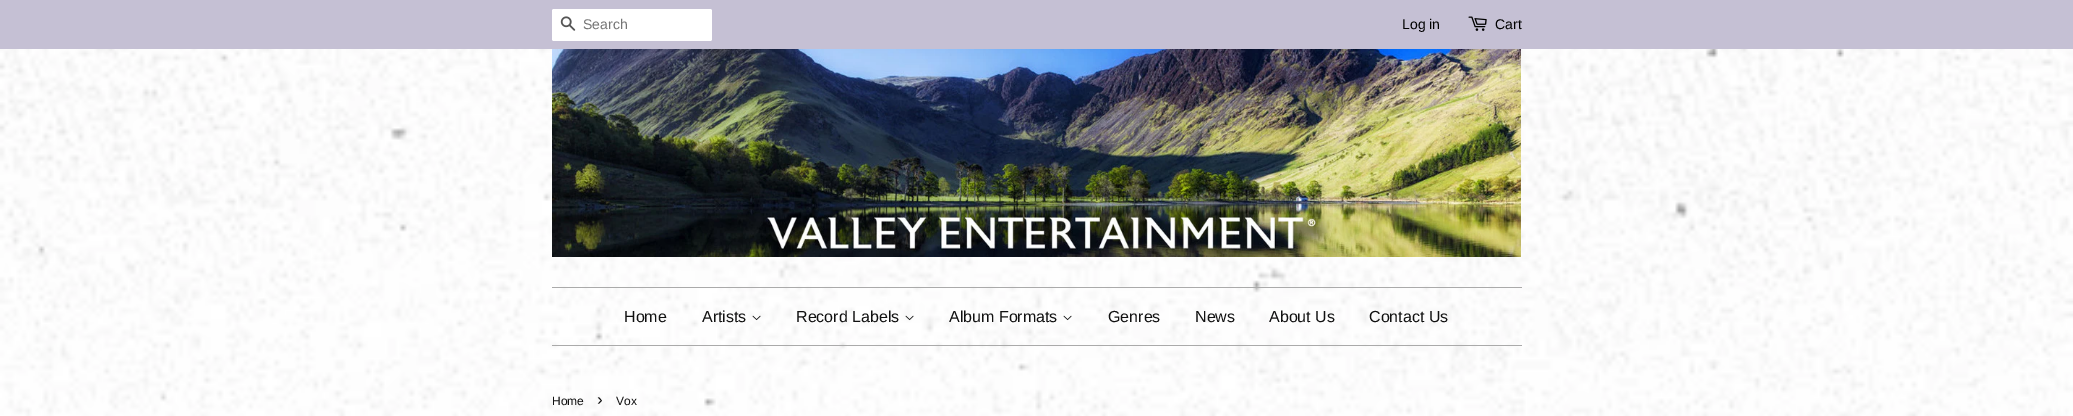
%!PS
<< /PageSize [2073 416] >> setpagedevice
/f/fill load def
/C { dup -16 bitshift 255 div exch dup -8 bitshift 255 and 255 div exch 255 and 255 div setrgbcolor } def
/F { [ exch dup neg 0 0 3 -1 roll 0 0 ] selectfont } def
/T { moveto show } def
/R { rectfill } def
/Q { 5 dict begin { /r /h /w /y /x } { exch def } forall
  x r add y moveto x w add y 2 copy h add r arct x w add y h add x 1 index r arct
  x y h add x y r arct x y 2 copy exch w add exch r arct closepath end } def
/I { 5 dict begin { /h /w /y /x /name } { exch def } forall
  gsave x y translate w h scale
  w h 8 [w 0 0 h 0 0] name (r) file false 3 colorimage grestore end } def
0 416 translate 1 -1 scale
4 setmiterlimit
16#FFFFFF C
0 0 2073 416 R
(1.rgb) 0 49 2073 367 I
16#C5C0D4 C
0 0 2073 49 R
16#FFFFFF C
552 9 160 32 2 Q f
(2.rgb) 560 16 16 15 I
/LiberationSans-Regular 14 F
16#757575 C
(Search) 583 29 T
16#000000 C
(Log in) 1402 29 T
(3.rgb) 1468 16 19 15 I
(Cart) 1495 29 T
(4.rgb) 552 49 969 208 I
16#AAAAAA C
552 287 970 1 R
552 345 970 1 R
/LiberationSans-Regular 16 F
16#111111 C
(Home) 624 322 T
(Artists) 702 322 T
(5.rgb) 752 315 9 6 I
(Record Labels) 796 322 T
(6.rgb) 905 315 9 6 I
(Album Formats) 949 322 T
(7.rgb) 1063 315 9 6 I
(Genres) 1108 322 T
(News) 1195 322 T
(About Us) 1269 322 T
(Contact Us) 1369 322 T
/LiberationSans-Regular 12 F
(Home) 552 405 T
/LiberationSans-Regular 17 F
(›) 597 405 T
/LiberationSans-Regular 12 F
(Vox) 616 405 T
showpage
